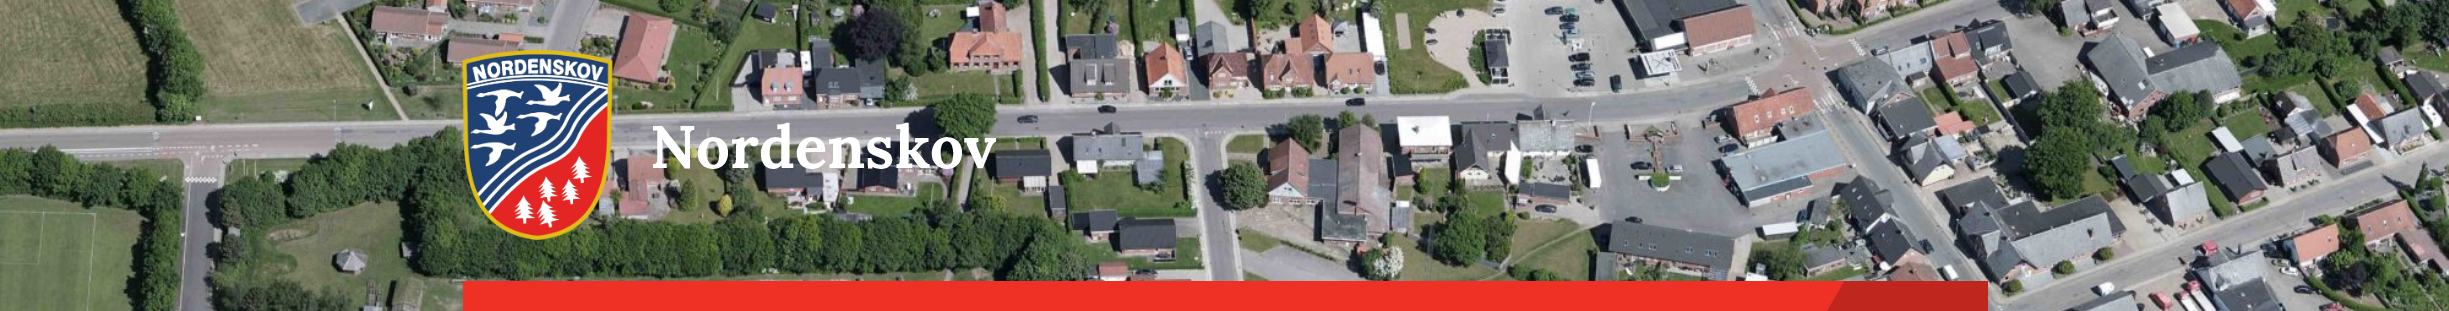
%!PS
<< /PageSize [2449 311] >> setpagedevice
/m/moveto load def
/l/rlineto load def
/z/closepath load def
/f/fill load def
/q/gsave load def
/Q_/grestore load def
/C { dup -16 bitshift 255 div exch dup -8 bitshift 255 and 255 div exch 255 and 255 div setrgbcolor } def
/F { [ exch dup neg 0 0 3 -1 roll 0 0 ] selectfont } def
/T { moveto show } def
/R { rectfill } def
/I { 5 dict begin { /h /w /y /x /name } { exch def } forall
  gsave x y translate w h scale
  w h 8 [w 0 0 h 0 0] name (r) file false 3 colorimage grestore end } def
0 311 translate 1 -1 scale
4 setmiterlimit
16#FFFFFF C
0 0 2449 311 R
(1.rgb) 0 0 2449 311 I
(2.rgb) 462 50 151 190 I
/Lora-Bold 60 F
(Nordenskov) 650 168 T
16#EF3024 C
463 281 1382 30 R
q
463 281 1525 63 rectclip
16#BF261D C
1925 142 m 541 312 l -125 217 l -541 -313 l z f
Q_
showpage
